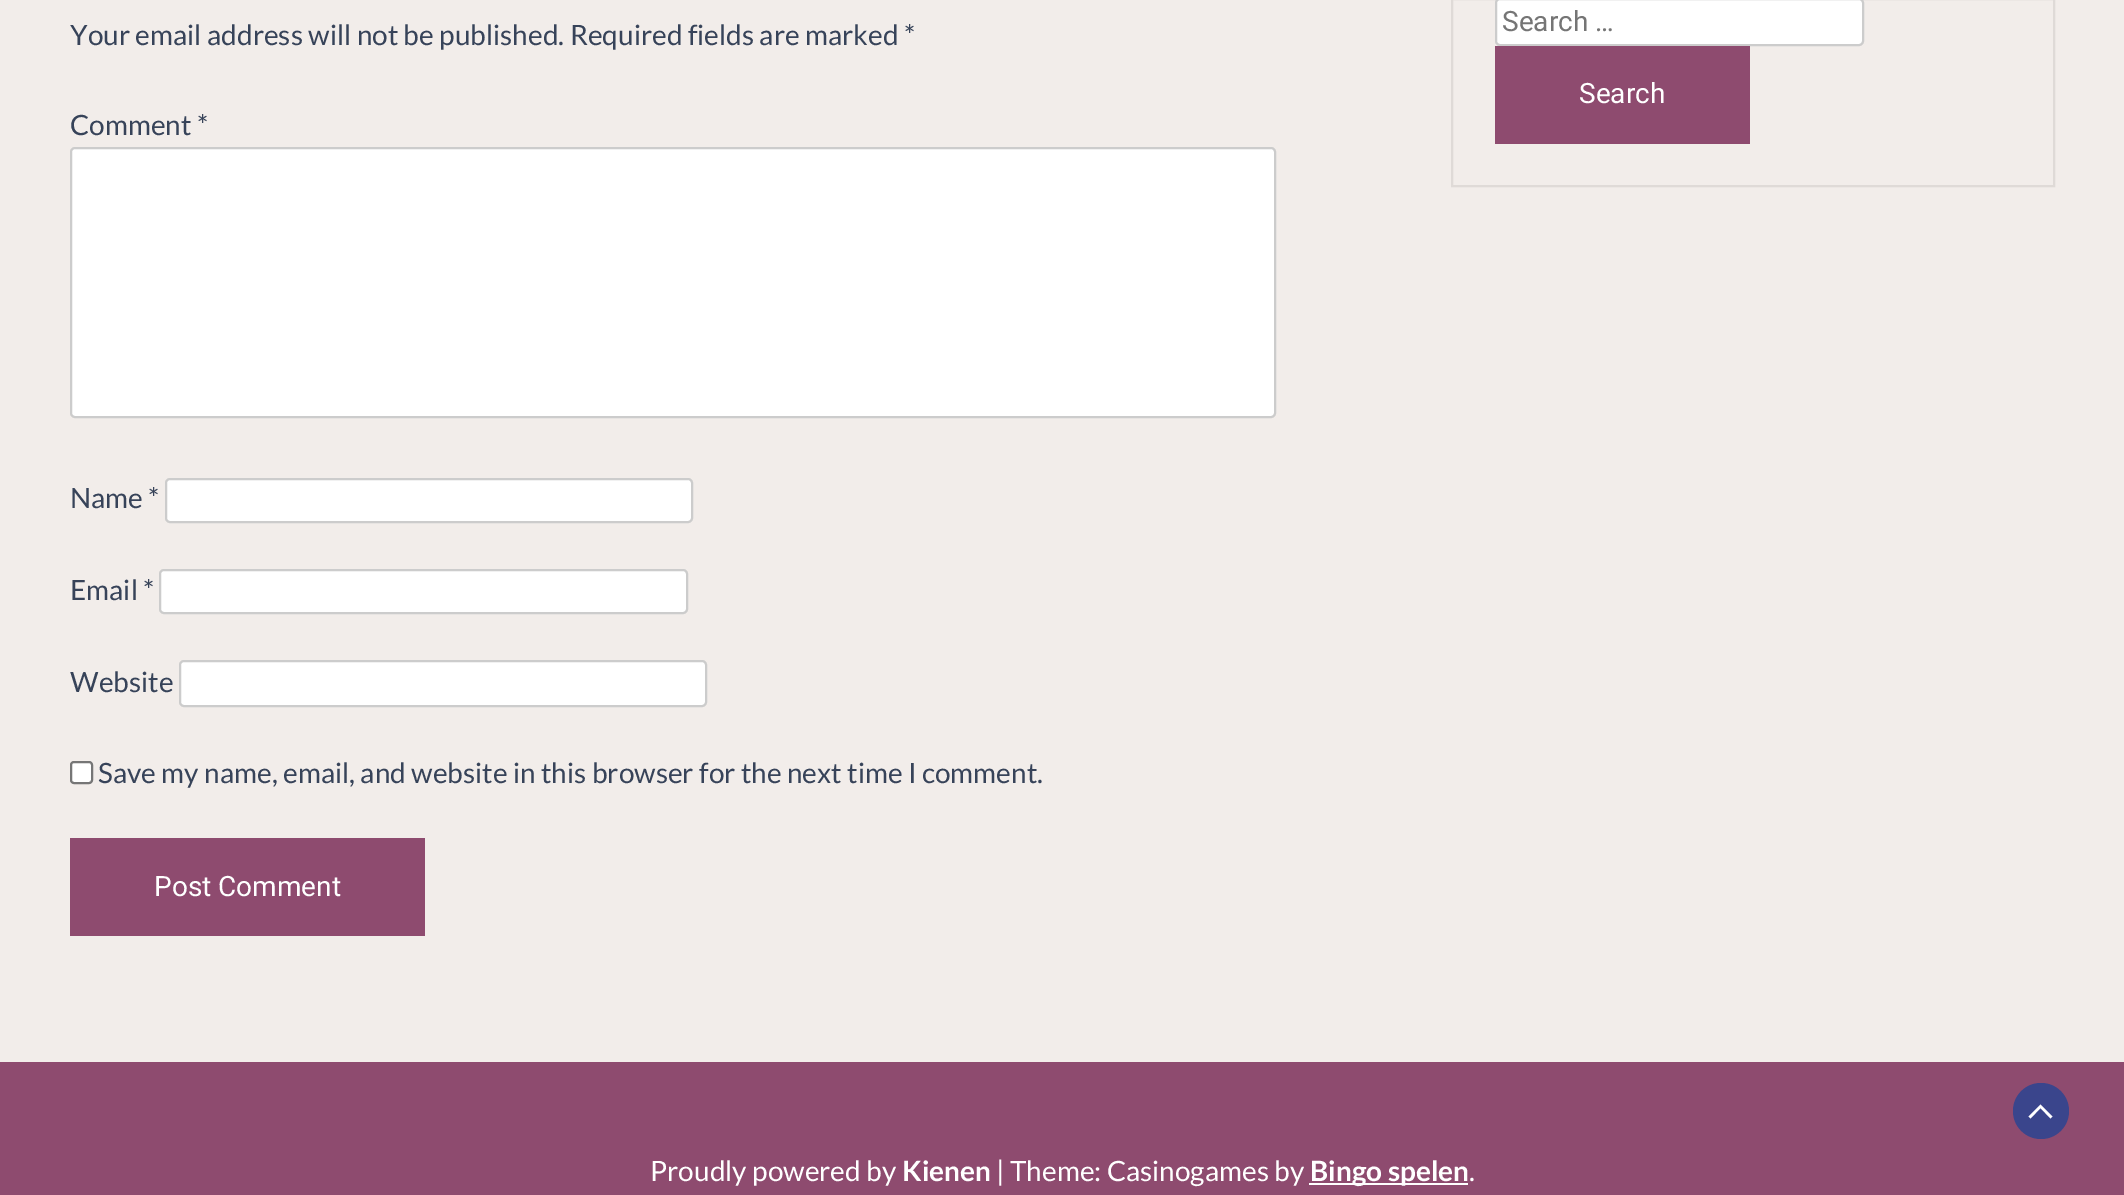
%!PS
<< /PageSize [2124 1195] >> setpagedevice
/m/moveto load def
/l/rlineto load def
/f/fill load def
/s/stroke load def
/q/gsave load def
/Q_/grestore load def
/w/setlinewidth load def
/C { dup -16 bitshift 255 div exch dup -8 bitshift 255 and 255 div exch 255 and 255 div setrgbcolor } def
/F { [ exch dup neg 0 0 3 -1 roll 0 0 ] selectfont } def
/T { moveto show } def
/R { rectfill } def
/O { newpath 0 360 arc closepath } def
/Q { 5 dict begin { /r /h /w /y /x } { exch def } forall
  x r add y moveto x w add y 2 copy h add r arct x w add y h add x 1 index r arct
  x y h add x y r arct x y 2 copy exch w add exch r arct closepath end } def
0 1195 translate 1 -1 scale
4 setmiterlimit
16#F2EDEA C
0 0 2124 1195 R
/Lato-Regular 28 F
16#374359 C
(Your email address will not be published. Required fields are marked *) 70 45 T
(Comment *) 70 135 T
16#FFFFFF C
71 148 1204 269 4 Q q f Q_
16#CCCCCC C
2 w
s
16#374359 C
(Name *) 70 508 T
16#FFFFFF C
166 479 526 43 4 Q q f Q_
16#CCCCCC C
s
16#374359 C
(Email *) 70 600 T
16#FFFFFF C
160 570 527 43 4 Q q f Q_
16#CCCCCC C
s
16#374359 C
(Website) 70 692 T
16#FFFFFF C
180 661 526 45 4 Q q f Q_
16#CCCCCC C
s
16#FFFFFF C
71 762 21 21 3 Q q f Q_
16#767676 C
s
16#374359 C
(Save my name, email, and website in this browser for the next time I comment.) 98 783 T
16#8E4B6F C
70 838 355 98 R
/Roboto-Regular 28 F
16#FFFFFF C
(Post Comment) 154 896 T
16#DFDAD7 C
1452 -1 602 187 rectstroke
16#FFFFFF C
1496 -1 367 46 4 Q q f Q_
16#CCCCCC C
s
16#757575 C
(Search …) 1502 31 T
16#8E4B6F C
1495 46 255 98 R
16#FFFFFF C
(Search) 1579 103 T
16#8E4B6F C
0 1062 2124 133 R
16#3A458C C
2041 1111 28 O f
16#FFFFFF C
2052.5 1116.5 m -2 2 l -10 -10.5 l -10 10.5 l -2 -2 l 12 -12 l 12 12 l f
/Lato-Regular 28 F
(Proudly powered by) 650 1181 T
/Lato-Bold 28 F
(Kienen) 902 1181 T
/Lato-Regular 28 F
(| Theme: Casinogames by) 996 1181 T
1309 1183 159 2 R
/Lato-Bold 28 F
(Bingo spelen) 1310 1181 T
/Lato-Regular 28 F
(.) 1469 1181 T
showpage
